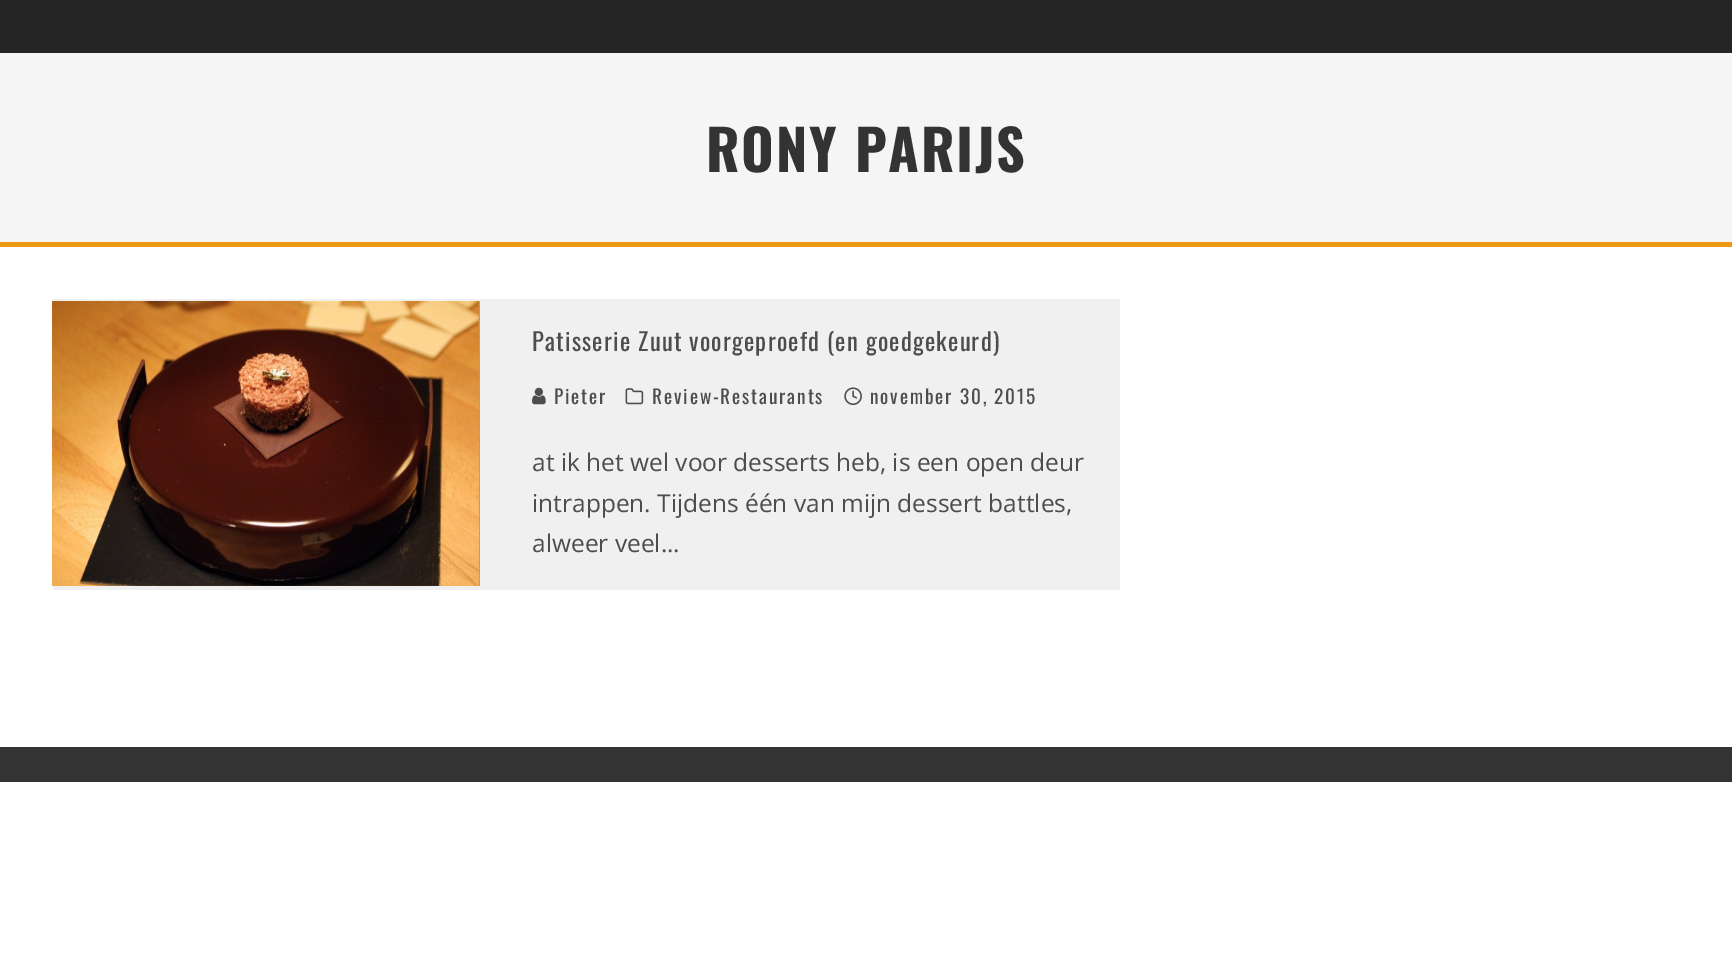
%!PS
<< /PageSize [1732 966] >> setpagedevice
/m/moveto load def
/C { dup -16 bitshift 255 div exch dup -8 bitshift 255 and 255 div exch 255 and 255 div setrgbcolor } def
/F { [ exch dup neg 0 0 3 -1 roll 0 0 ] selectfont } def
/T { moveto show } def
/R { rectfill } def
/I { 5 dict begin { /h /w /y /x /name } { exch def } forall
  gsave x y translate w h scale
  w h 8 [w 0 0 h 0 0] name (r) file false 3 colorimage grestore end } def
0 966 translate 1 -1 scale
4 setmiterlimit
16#FFFFFF C
0 0 1732 966 R
16#252525 C
0 0 1732 53 R
16#F5F5F5 C
0 53 1732 189 R
16#EB9812 C
0 242 1732 5 R
/Oswald-Bold 56 F
16#333333 C
706 172 m 1.75 0 (RONY PARIJS) ashow
16#F0F0F0 C
53 299 1067 291 R
16#EB9812 C
53 301 427 285 R
(1.rgb) 52 301 427 285 I
/Oswald-Regular 24.5 F
16#4D4D4D C
532 351 m 1.2 0 (Patisserie Zuut voorgeproefd \(en goedgekeurd\)) ashow
(2.rgb) 532 387 14 18 I
/Oswald-Regular 19.25 F
554 404 m 1.9 0 (Pieter) ashow
(3.rgb) 625 388 19 17 I
652 404 m 1.9 0 (Review-Restaurants) ashow
(4.rgb) 844 387 18 18 I
870 404 m 1.9 0 (november 30, 2015) ashow
/OpenSans-Regular 24.5 F
(at ik het wel voor desserts heb, is een open deur) 532 471 T
(intrappen. Tijdens één van mijn dessert battles,) 532 512 T
(alweer veel...) 532 552 T
16#333333 C
0 747 1732 35 R
showpage
